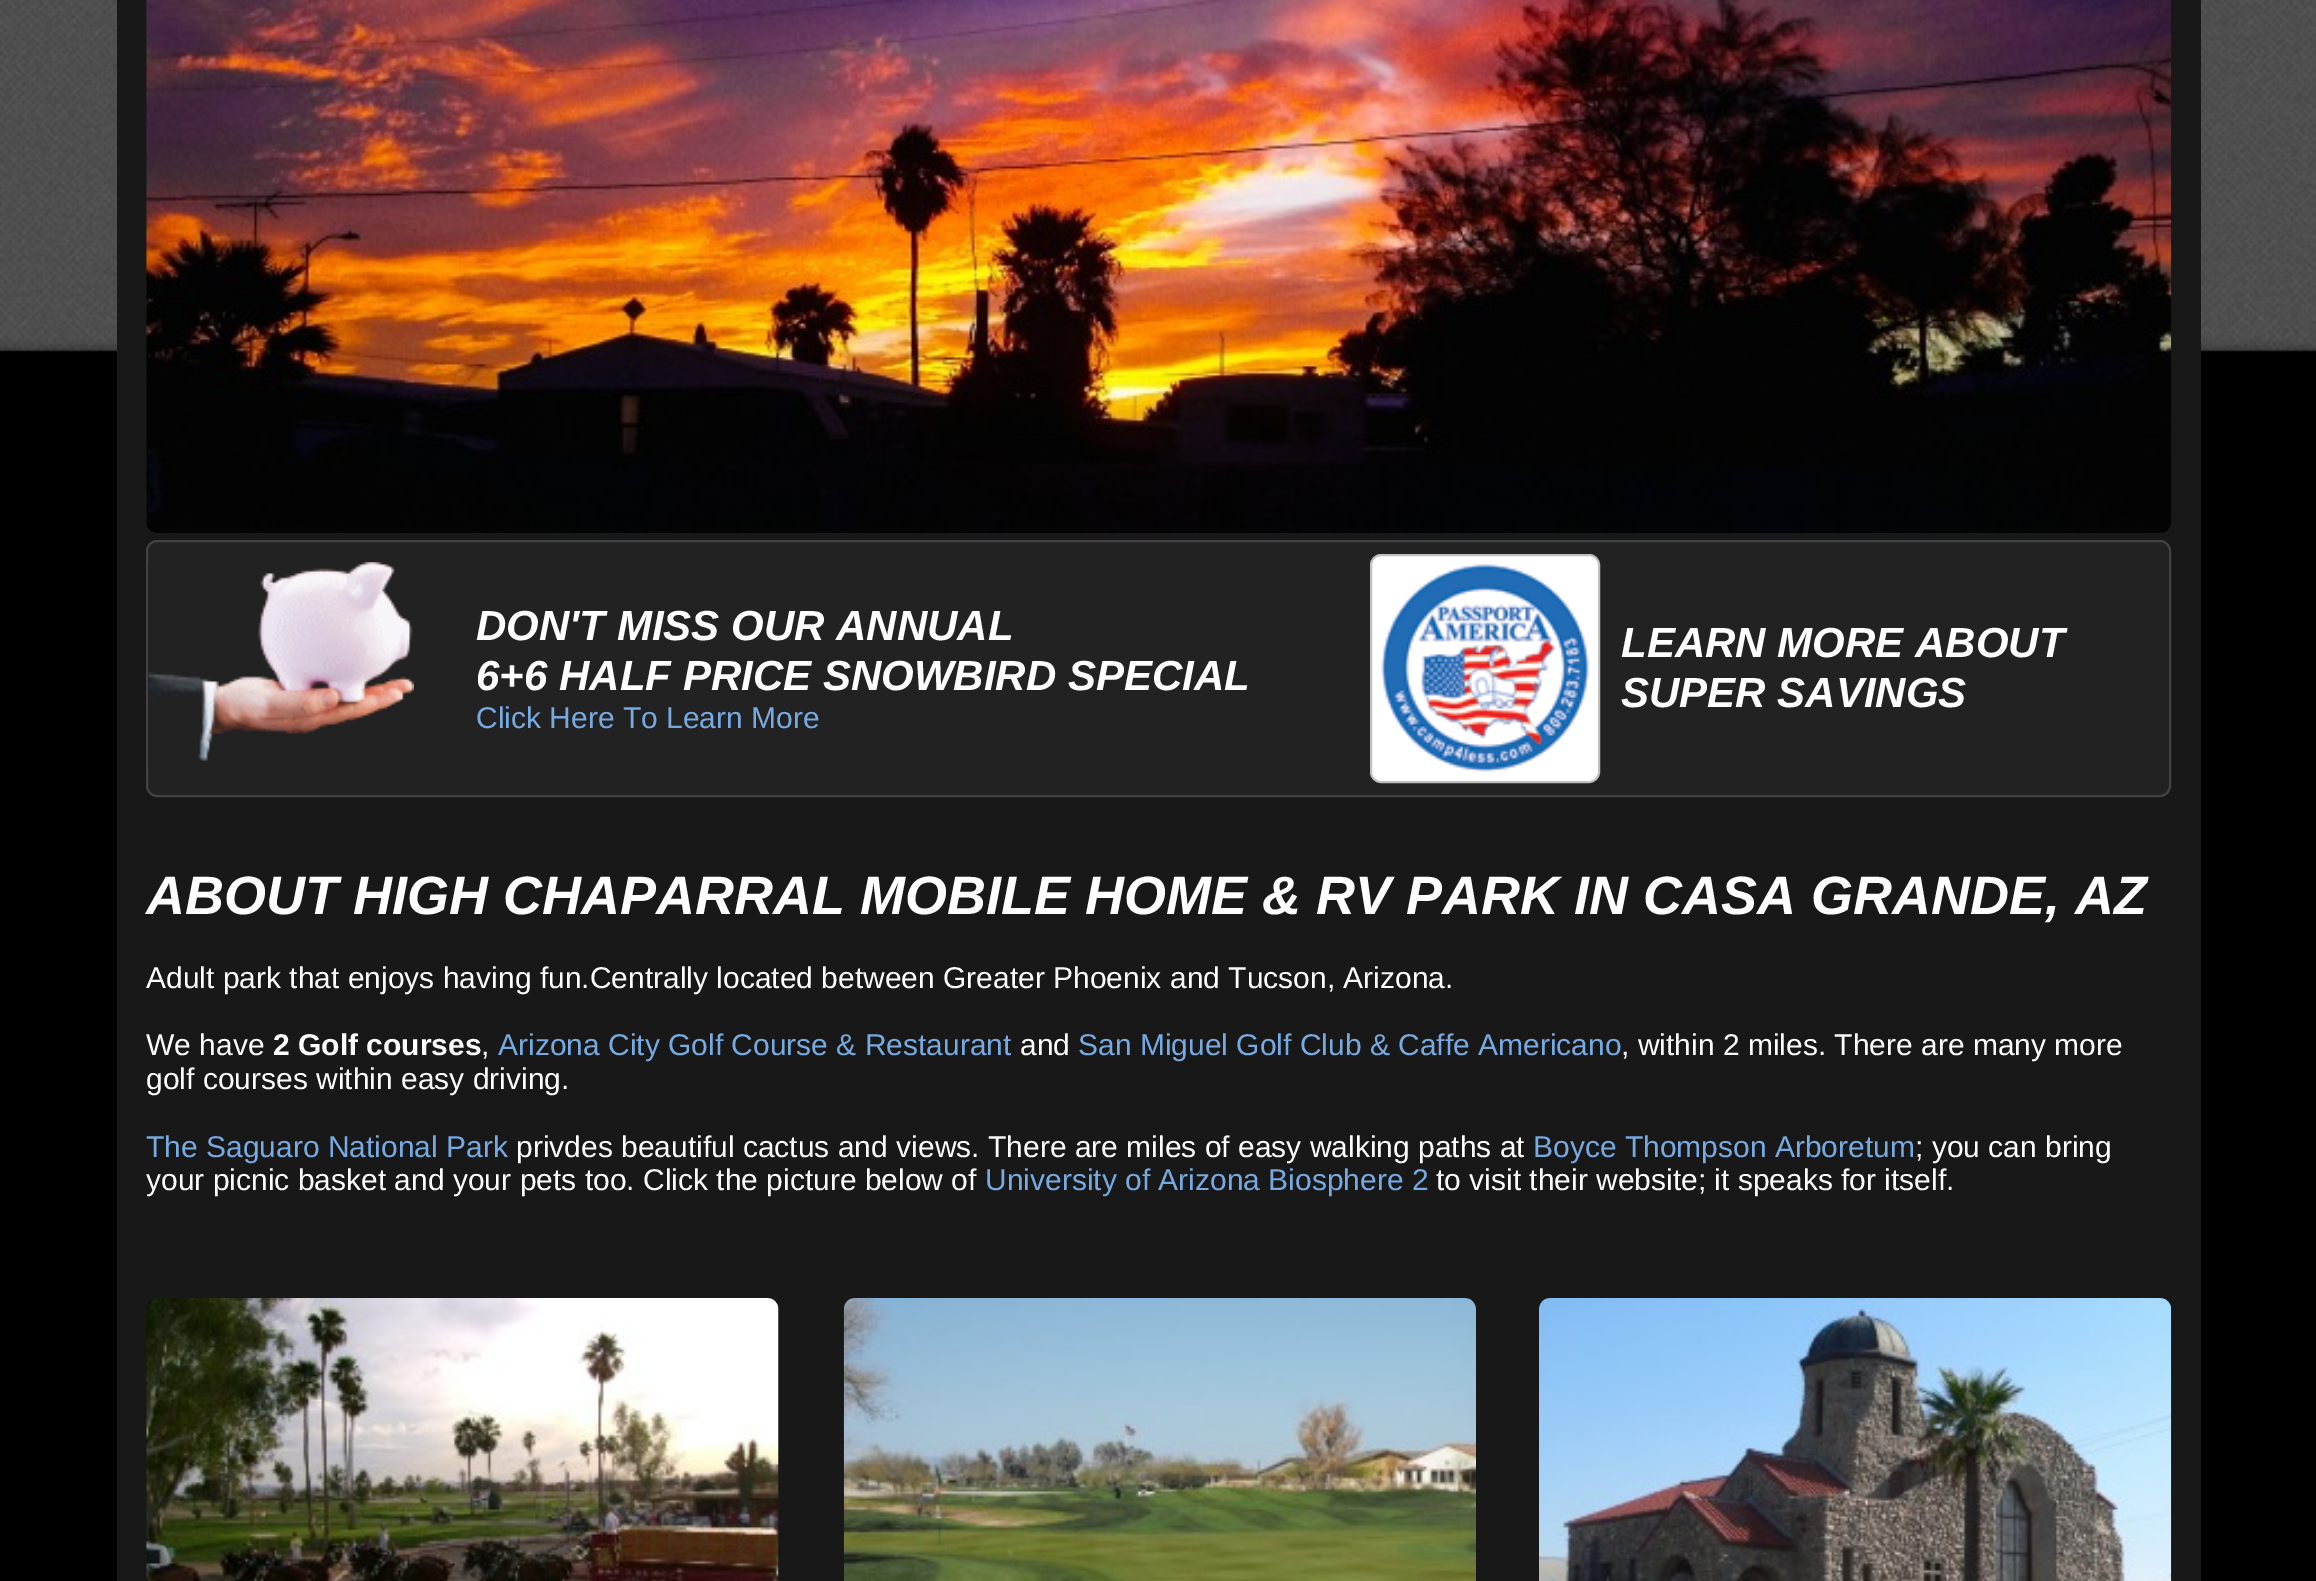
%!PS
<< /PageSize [2316 1581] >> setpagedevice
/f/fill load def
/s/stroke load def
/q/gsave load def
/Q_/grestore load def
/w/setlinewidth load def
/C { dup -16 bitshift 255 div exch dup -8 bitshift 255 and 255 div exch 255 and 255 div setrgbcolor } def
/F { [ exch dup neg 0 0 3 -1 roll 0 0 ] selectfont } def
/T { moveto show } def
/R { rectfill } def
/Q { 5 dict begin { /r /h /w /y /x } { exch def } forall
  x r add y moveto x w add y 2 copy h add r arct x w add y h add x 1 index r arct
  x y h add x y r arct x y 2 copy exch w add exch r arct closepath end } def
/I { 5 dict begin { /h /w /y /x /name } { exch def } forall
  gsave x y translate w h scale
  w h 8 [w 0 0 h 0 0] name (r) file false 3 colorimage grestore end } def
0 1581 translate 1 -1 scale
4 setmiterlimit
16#000000 C
0 0 2316 1581 R
(1.rgb) 0 0 2316 352 I
16#181818 C
117 0 2084 1581 R
(2.rgb) 146 0 2026 533 I
16#222222 C
147 541 2023 255 10 Q q f Q_
16#434343 C
2 w
s
(3.rgb) 148 562 266 207 I
/LiberationSans-BoldItalic 42 F
16#FFFFFF C
(DON'T MISS OUR ANNUAL) 476 640 T
(6+6 HALF PRICE SNOWBIRD SPECIAL) 476 690 T
/LiberationSans-Regular 30 F
16#78AAE2 C
(Click Here To Learn More) 476 728 T
16#FFFFFF C
1371 555 228 227 10 Q q f Q_
16#C0C0C0 C
s
(4.rgb) 1381 564 209 208 I
/LiberationSans-BoldItalic 42 F
16#FFFFFF C
(LEARN MORE ABOUT) 1621 657 T
(SUPER SAVINGS) 1621 707 T
/LiberationSans-BoldItalic 54 F
(ABOUT HIGH CHAPARRAL MOBILE HOME & RV PARK IN CASA GRANDE, AZ) 146 914 T
/LiberationSans-Regular 30 F
(Adult park that enjoys having fun.Centrally located between Greater Phoenix and Tucson, Arizona.) 146 988 T
(We have) 146 1055 T
/LiberationSans-Bold 30 F
(2 Golf courses) 273 1055 T
/LiberationSans-Regular 30 F
(,) 481 1055 T
16#78AAE2 C
(Arizona City Golf Course & Restaurant) 498 1055 T
16#FFFFFF C
(and) 1020 1055 T
16#78AAE2 C
(San Miguel Golf Club & Caffe Americano) 1078 1055 T
16#FFFFFF C
(, within 2 miles. There are many more) 1621 1055 T
(golf courses within easy driving.) 146 1089 T
16#78AAE2 C
(The Saguaro National Park) 146 1157 T
16#FFFFFF C
(privdes beautiful cactus and views. There are miles of easy walking paths at) 516 1157 T
16#78AAE2 C
(Boyce Thompson Arboretum) 1533 1157 T
16#FFFFFF C
(; you can bring) 1915 1157 T
(your picnic basket and your pets too. Click the picture below of) 146 1190 T
16#78AAE2 C
(University of Arizona Biosphere 2) 985 1190 T
16#FFFFFF C
(to visit their website; it speaks for itself.) 1436 1190 T
(5.rgb) 146 1298 633 283 I
(6.rgb) 843 1298 633 283 I
(7.rgb) 1539 1298 633 283 I
showpage
